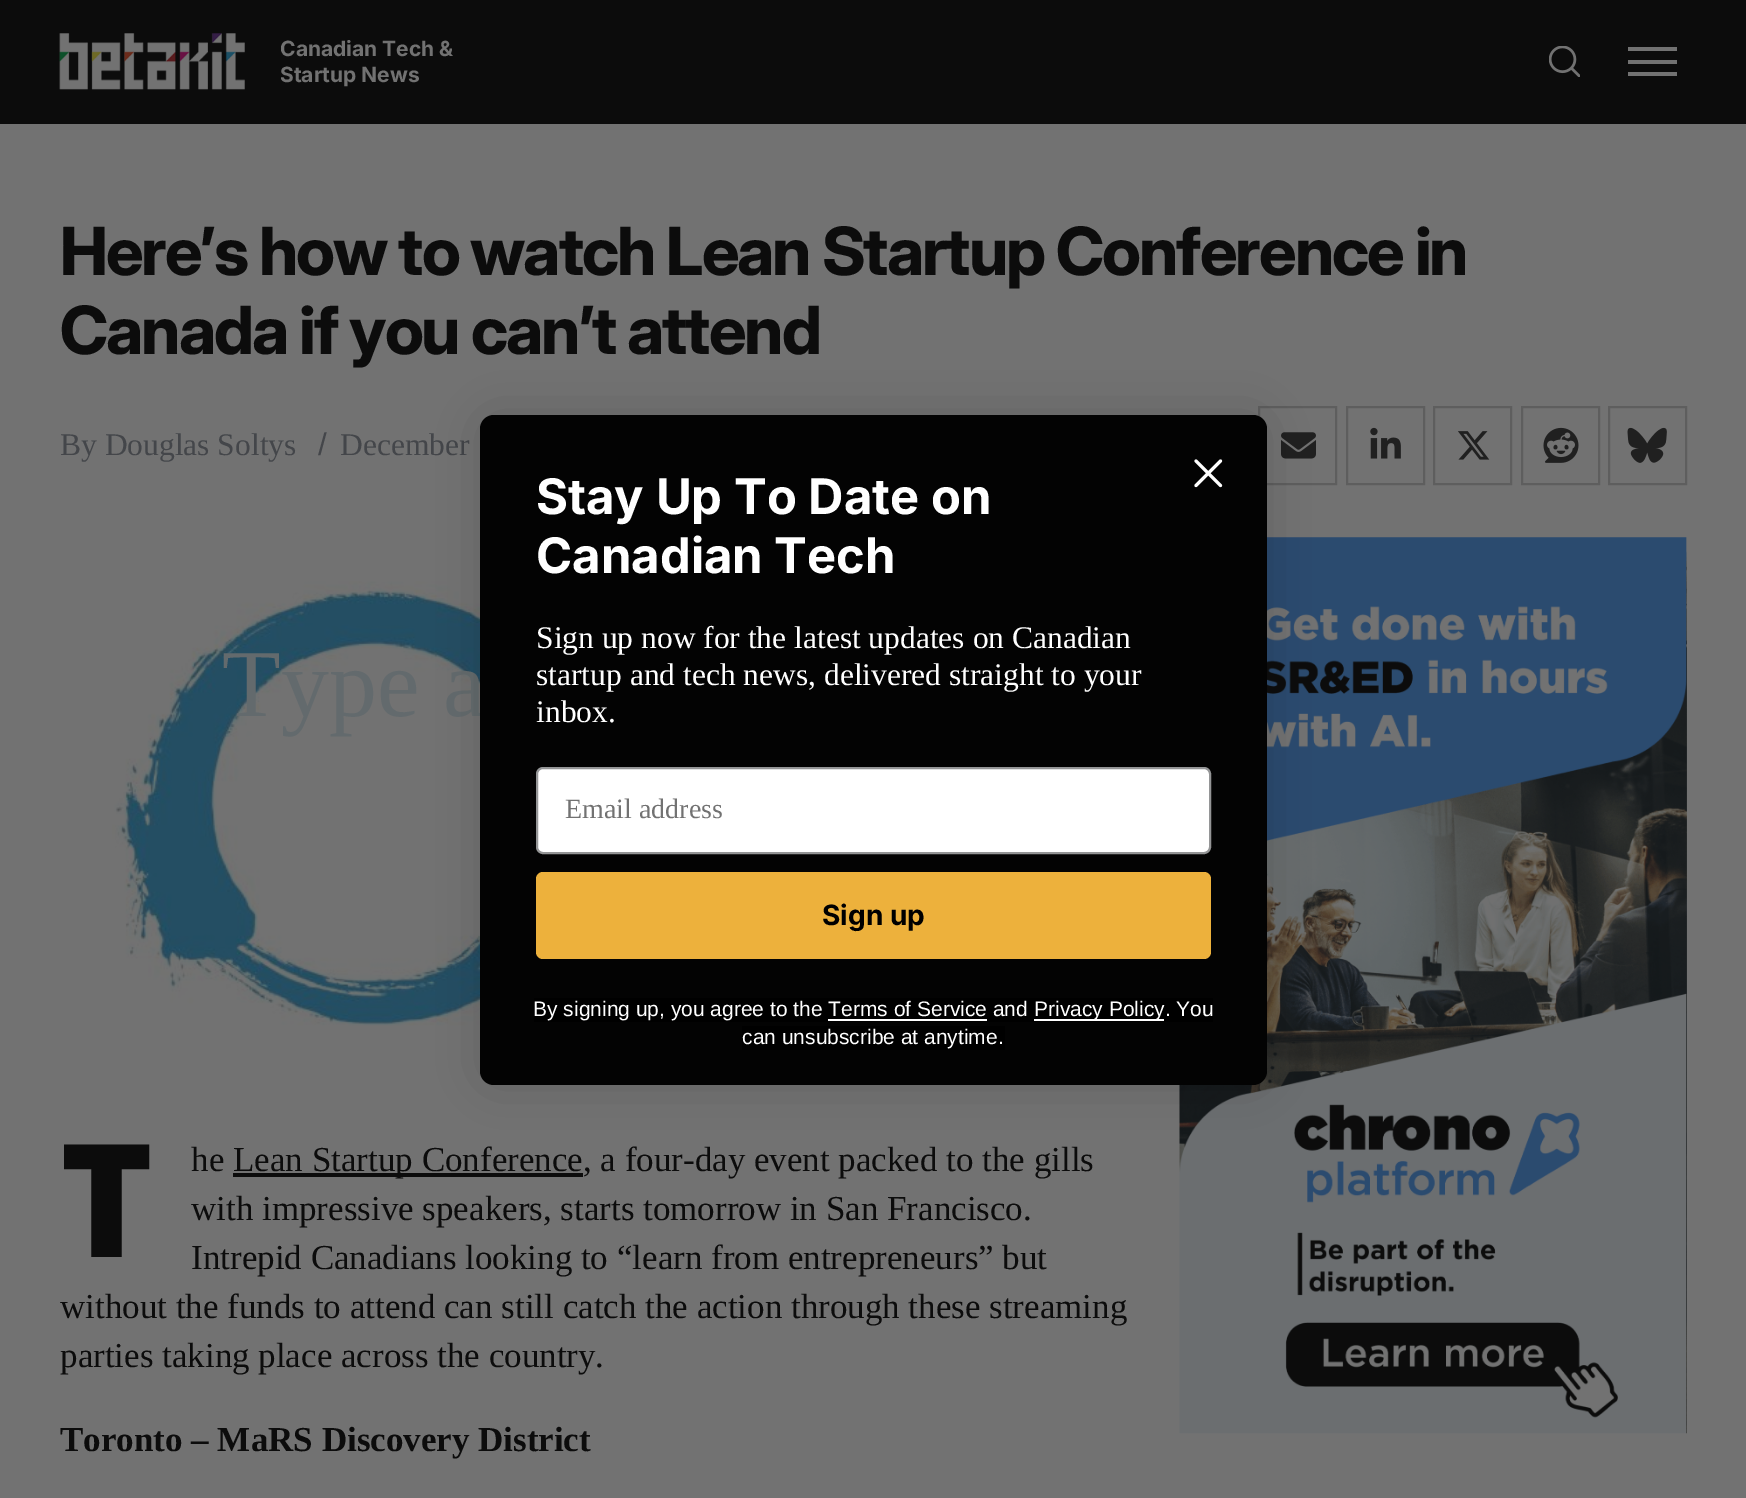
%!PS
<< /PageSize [1746 1498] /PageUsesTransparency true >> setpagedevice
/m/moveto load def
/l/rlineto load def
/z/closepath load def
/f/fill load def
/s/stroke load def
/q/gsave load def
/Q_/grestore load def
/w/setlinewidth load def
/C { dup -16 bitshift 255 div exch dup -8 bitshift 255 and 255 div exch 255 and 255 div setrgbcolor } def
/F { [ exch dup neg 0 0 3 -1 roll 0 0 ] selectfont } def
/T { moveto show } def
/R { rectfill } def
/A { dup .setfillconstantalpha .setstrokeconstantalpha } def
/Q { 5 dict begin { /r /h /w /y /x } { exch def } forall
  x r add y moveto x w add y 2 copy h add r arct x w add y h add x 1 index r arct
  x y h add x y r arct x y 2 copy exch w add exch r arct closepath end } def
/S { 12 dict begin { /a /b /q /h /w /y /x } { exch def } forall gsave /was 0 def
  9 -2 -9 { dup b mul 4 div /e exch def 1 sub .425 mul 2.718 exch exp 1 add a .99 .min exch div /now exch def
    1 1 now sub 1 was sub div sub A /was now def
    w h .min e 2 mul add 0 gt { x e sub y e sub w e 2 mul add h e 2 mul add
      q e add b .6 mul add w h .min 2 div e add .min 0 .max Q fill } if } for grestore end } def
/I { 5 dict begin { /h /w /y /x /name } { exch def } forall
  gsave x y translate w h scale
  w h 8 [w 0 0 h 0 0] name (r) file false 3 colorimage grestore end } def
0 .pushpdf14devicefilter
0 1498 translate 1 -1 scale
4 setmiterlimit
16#727272 C
0 0 1746 1498 R
16#0C0C0C C
0 0 1746 124 R
(1.rgb) 59 33 186 57 I
/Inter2-Bold 21 F
16#727272 C
(Canadian Tech &) 280 56 T
(Startup News) 280 82 T
(2.rgb) 1549 46 31 31 I
1628 60 49 4 R
1628 47 49 4 R
1628 72 49 4 R
/Inter-Bold 66.4 F
16#0C0C0C C
60 275 m -2 0 (Here’s how to watch Lean Startup Conference in) ashow
60 354 m -2 0 (Canada if you can’t attend) ashow
/LiberationSerif-Regular 31.5 F
16#44464A C
(By Douglas Soltys) 60 455 T
/LiberationSans-Regular 31.5 F
(/) 318 455 T
/LiberationSerif-Regular 31.5 F
(December) 340 455 T
16#5E5E5E C
2 w
1259 407 77 77 rectstroke
(3.rgb) 1281 432 35 27 I
1347 407 77 77 rectstroke
(4.rgb) 1370 427 31 32 I
1434 407 77 77 rectstroke
(5.rgb) 1458 431 32 29 I
1522 407 77 77 rectstroke
(6.rgb) 1543 427 36 36 I
1609 407 77 77 rectstroke
(7.rgb) 1627 427 40 36 I
(8.rgb) 112 581 368 445 I
/NotoSans-Black 158 F
16#0C0C0C C
(T) 60 1257 T
/LiberationSerif-Regular 35 F
(he) 191 1171 T
233 1173 350 4 R
(Lean Startup Conference, a four-day event packed to the gills) 233 1171 T
(with impressive speakers, starts tomorrow in San Francisco.) 191 1220 T
(Intrepid Canadians looking to “learn from entrepreneurs” but) 191 1269 T
(without the funds to attend can still catch the action through these streaming) 60 1318 T
(parties taking place across the country.) 60 1367 T
/LiberationSerif-Bold 35 F
(Toronto – MaRS Discovery District) 60 1451 T
(9.rgb) 1179 537 508 897 I
/LiberationSerif-Regular 96 F
16#636A6D C
(Type a) 222 716 T
16#000000 C
480 415 787 670 14 26 .15 S
16#030303 C
480 415 787 670 14 Q f
16#FFFFFF C
3.1 w
1 setlinecap
1 setlinejoin
1196 461 m 24.5 24.5 l 1196 485.5 m 24.5 -24.5 l z s
/Inter2-Bold 49 F
(Stay Up To Date on) 536 514 T
(Canadian Tech) 536 573 T
/LiberationSerif-Regular 31.5 F
(Sign up now for the latest updates on Canadian) 536 648 T
(startup and tech news, delivered straight to your) 536 685 T
(inbox.) 536 722 T
537 768 673 85 6 Q q f Q_
16#949596 C
2 w
0 setlinecap
0 setlinejoin
s
/LiberationSerif-Regular 28 F
16#727272 C
(Email address) 565 818 T
16#EDB13C C
536 872 675 87 7 Q f
/Inter2-Bold 28 F
16#000000 C
(Sign up) 822 925 T
534 998 679 24 R
/LiberationSans-Regular 21 F
16#FFFFFF C
(By signing up, you agree to the Terms of Service and) 533 1016 T
828 1019 159 2 R
1034 1019 130 2 R
(Privacy Policy. You) 1034 1016 T
16#000000 C
742 1026 263 24 R
16#FFFFFF C
(can unsubscribe at anytime.) 742 1044 T
.poppdf14devicefilter showpage
